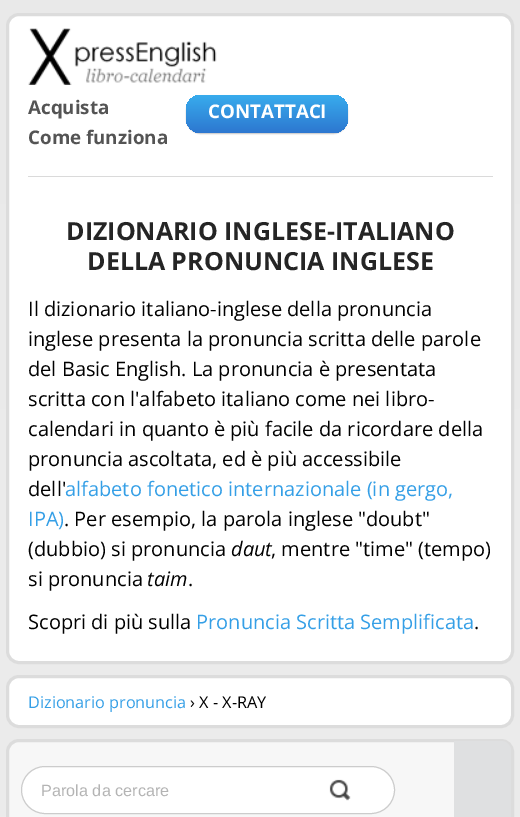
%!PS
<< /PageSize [520 817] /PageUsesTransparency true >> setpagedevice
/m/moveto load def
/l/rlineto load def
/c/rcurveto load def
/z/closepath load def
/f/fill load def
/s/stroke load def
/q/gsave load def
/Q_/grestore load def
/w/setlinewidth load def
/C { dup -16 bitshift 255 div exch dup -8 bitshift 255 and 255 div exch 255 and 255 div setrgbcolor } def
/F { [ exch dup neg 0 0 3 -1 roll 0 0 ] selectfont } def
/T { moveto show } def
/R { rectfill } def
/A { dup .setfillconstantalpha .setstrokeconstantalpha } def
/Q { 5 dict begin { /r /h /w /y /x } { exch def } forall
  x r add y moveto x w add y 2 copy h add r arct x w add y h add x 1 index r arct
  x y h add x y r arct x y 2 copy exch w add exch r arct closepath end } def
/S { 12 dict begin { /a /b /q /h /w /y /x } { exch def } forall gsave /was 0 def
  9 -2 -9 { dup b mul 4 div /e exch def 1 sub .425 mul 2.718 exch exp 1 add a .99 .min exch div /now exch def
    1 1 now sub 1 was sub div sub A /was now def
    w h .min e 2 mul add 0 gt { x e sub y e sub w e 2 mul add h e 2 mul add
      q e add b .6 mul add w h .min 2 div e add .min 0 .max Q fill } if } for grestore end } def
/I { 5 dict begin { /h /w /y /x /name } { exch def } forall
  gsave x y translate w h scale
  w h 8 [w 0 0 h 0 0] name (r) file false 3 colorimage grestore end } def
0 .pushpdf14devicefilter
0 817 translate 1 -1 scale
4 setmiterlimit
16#FFFFFF C
0 0 520 817 R
q 0 0 m 520 0 l 0 817 l -520 0 l z clip newpath
<< /ShadingType 2 /ColorSpace /DeviceRGB /Coords [260 0 260 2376] /Extend [true true] /Function << /FunctionType 2 /Domain [0 1] /C0 [.914 .914 .914] /C1 [.953 .953 .953] /N 1 >> >> shfill Q_
7.5 14.5 505 648 11.5 Q q f Q_
16#DCDCDC C
3 w
s
16#DADADA C
28 176 465 1 R
(1.rgb) 28 28 189 57 I
/OpenSans-Bold 18.75 F
16#545454 C
(Acquista) 28 114 T
(Come funziona) 28 144 T
16#000000 C
186 96 162 38 15 .5 .2 S
q 186 95 162 38 15 Q clip newpath
<< /ShadingType 2 /ColorSpace /DeviceRGB /Coords [267 95 267 133] /Extend [true true] /Function << /FunctionType 2 /Domain [0 1] /C0 [.22 .675 .929] /C1 [.176 .467 .816] /N 1 >> >> shfill Q_
16#FFFFFF C
(CONTATTACI) 208 118 T
/OpenSans-Bold 25 F
16#252525 C
(DIZIONARIO INGLESE-ITALIANO) 66 240 T
(DELLA PRONUNCIA INGLESE) 87 270 T
/OpenSans-Regular 20 F
16#000000 C
(Il dizionario italiano-inglese della pronuncia) 28 316 T
(inglese presenta la pronuncia scritta delle parole) 28 346 T
(del Basic English. La pronuncia è presentata) 28 376 T
(scritta con l'alfabeto italiano come nei libro-) 28 406 T
(calendari in quanto è più facile da ricordare della) 28 436 T
(pronuncia ascoltata, ed è più accessibile) 28 466 T
(dell') 28 496 T
16#359FE6 C
(alfabeto fonetico internazionale \(in gergo,) 65 496 T
(IPA\)) 28 526 T
16#000000 C
(. Per esempio, la parola inglese "doubt") 64 526 T
(\(dubbio\) si pronuncia) 28 556 T
/OpenSans-Italic 20 F
(daut) 231 556 T
/OpenSans-Regular 20 F
(, mentre "time" \(tempo\)) 271 556 T
(si pronuncia) 28 586 T
/OpenSans-Italic 20 F
(taim) 147 586 T
/OpenSans-Regular 20 F
(.) 188 586 T
(Scopri di più sulla) 28 629 T
16#359FE6 C
(Pronuncia Scritta Semplificata) 196 629 T
16#000000 C
(.) 474 629 T
16#FFFFFF C
7.5 676.5 505 50 11.5 Q q f Q_
16#DCDCDC C
s
/OpenSans-Regular 16.25 F
16#359FE6 C
(Dizionario pronuncia) 28 708 T
16#000000 C
(› X - X-RAY) 190 708 T
16#F7F7F7 C
7.5 740.5 505 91 11.5 Q q f Q_
16#DCDCDC C
s
16#FFFFFF C
21.5 766.5 373 47 23.5 Q q f Q_
16#CCCCCC C
1 w
s
/LiberationSans-Regular 16.25 F
16#B4B4B4 C
(Parola da cercare) 41 796 T
(2.rgb) 329 779 22 22 I
16#DFE0E1 C
454 741 m 47 0 l 5.5 0 10 4.5 10 10 c 0 66 l 0 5.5 -4.5 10 -10 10 c -47 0 l z f
.poppdf14devicefilter showpage
